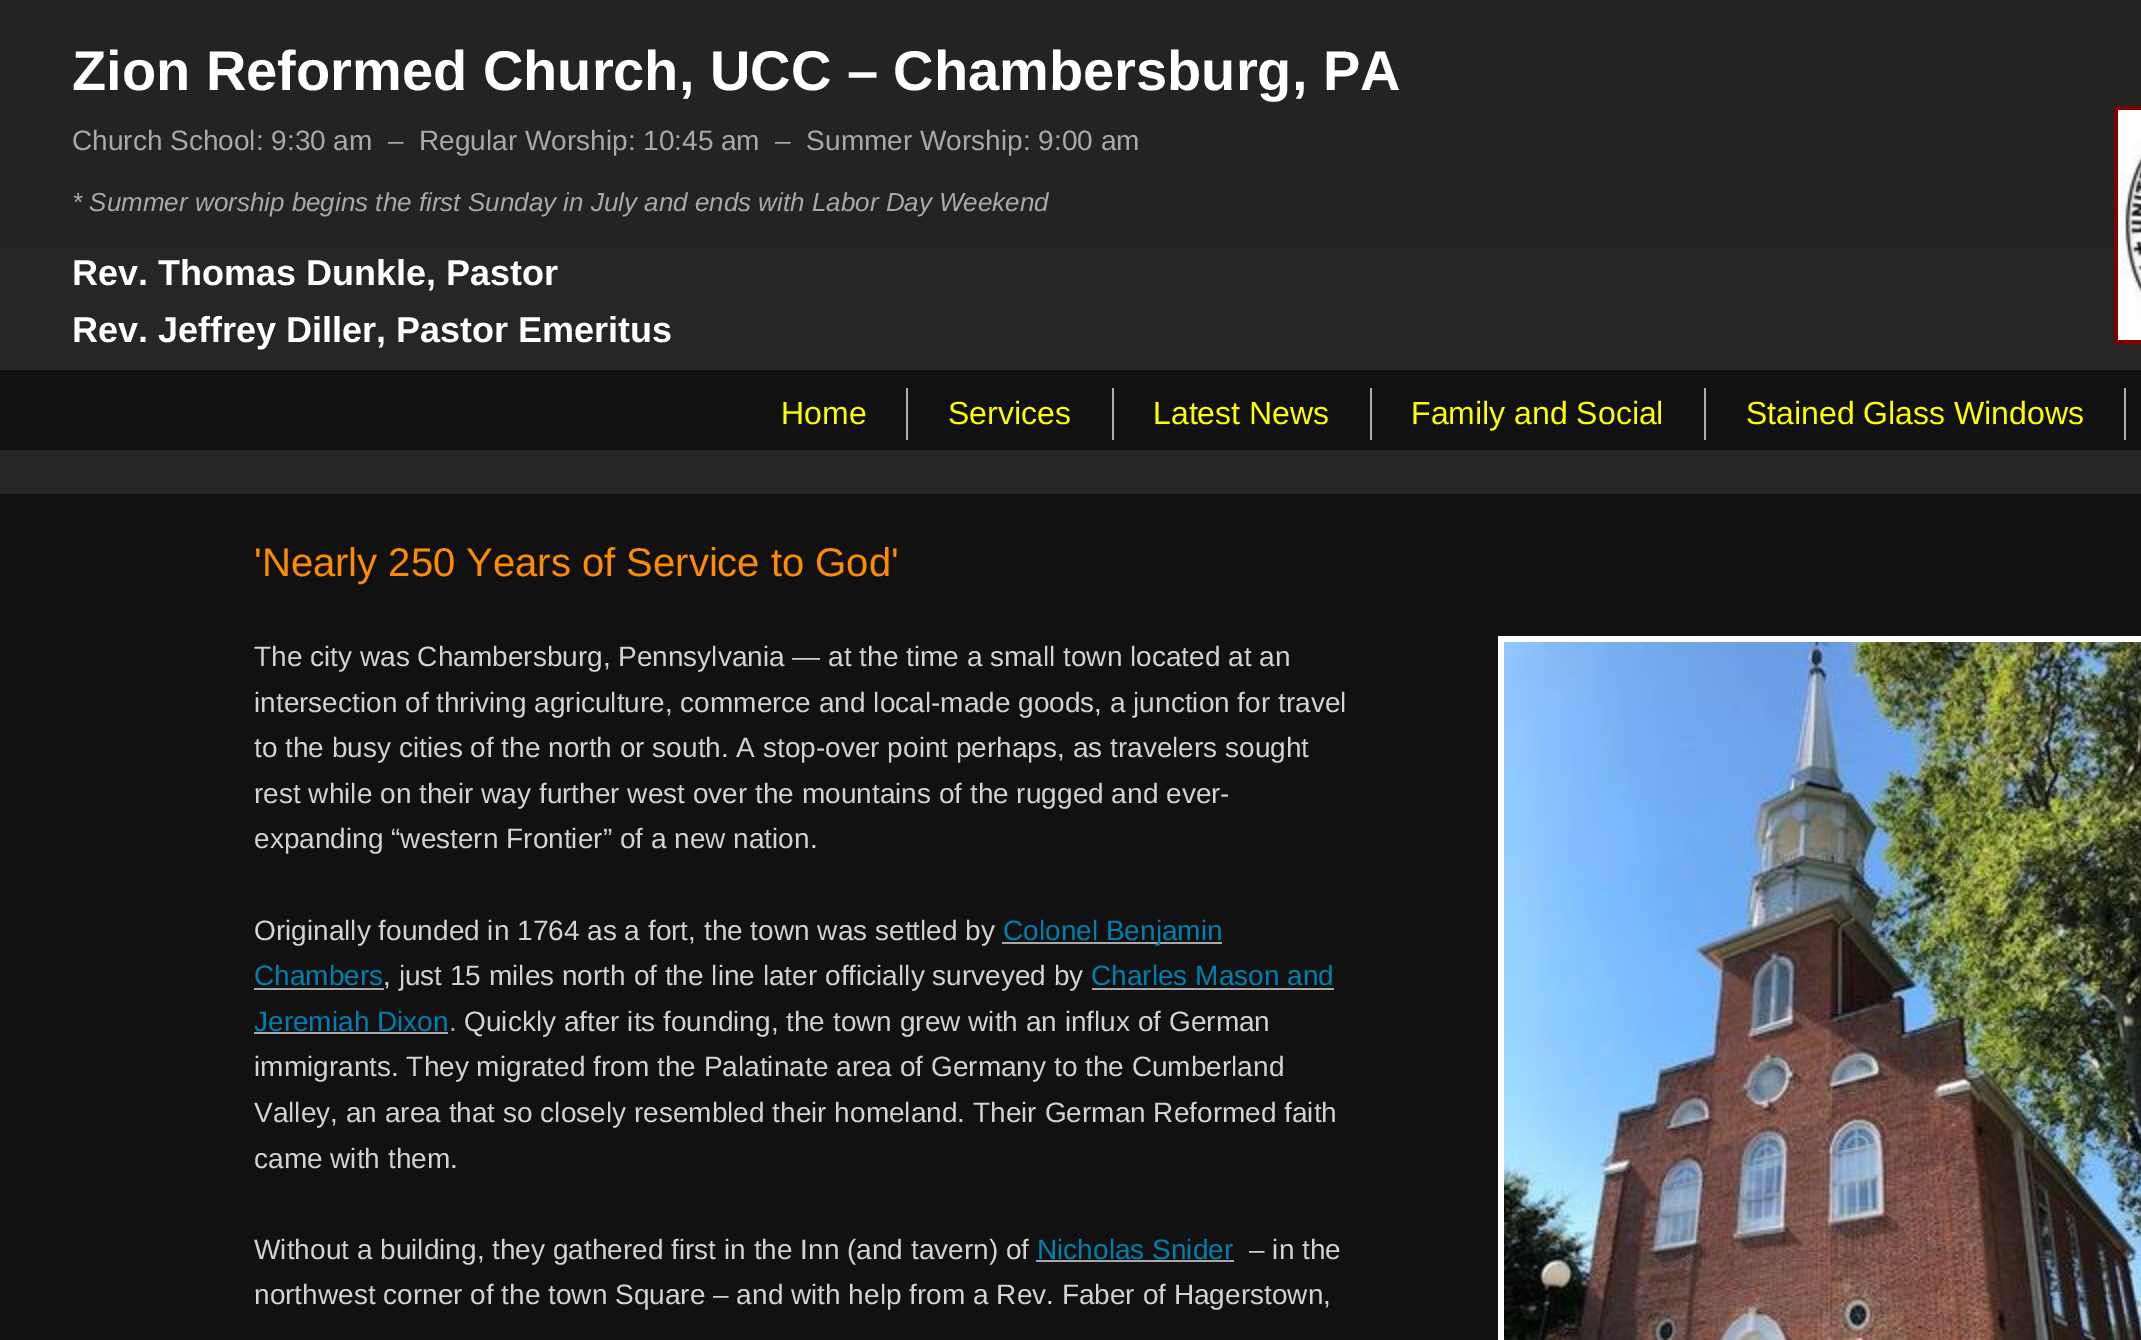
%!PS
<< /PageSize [2141 1340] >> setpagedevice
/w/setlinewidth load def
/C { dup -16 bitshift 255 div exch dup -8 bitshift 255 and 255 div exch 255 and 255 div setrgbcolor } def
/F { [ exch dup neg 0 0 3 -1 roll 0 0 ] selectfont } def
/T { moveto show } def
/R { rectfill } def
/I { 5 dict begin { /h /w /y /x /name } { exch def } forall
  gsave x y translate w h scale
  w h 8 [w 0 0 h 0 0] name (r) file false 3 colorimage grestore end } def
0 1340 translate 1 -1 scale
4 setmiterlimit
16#252322 C
0 0 2141 1340 R
16#282625 C
0 248 2141 246 R
/LiberationSans-Bold 56 F
16#FFFFFF C
(Zion Reformed Church, UCC – Chambersburg, PA) 72 90 T
/LiberationSans-Regular 28 F
16#A9A9A9 C
(Church School: 9:30 am  –  Regular Worship: 10:45 am  –  Summer Worship: 9:00 am) 72 150 T
/LiberationSans-Italic 26 F
(* Summer worship begins the first Sunday in July and ends with Labor Day Weekend) 72 211 T
/LiberationSans-Bold 36 F
16#FFFFFF C
(Rev. Thomas Dunkle, Pastor) 72 285 T
(Rev. Jeffrey Diller, Pastor Emeritus) 72 342 T
16#7F0000 C
4 w
2116 108 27 234 rectstroke
(1.rgb) 2118 110 23 230 I
16#111111 C
0 370 2141 80 R
16#AEAEAE C
906 388 2 52 R
/LiberationSans-Regular 32 F
16#FFFF00 C
(Home) 781 424 T
16#AEAEAE C
1112 388 2 52 R
16#FFFF00 C
(Services) 948 424 T
16#AEAEAE C
1370 388 2 52 R
16#FFFF00 C
(Latest News) 1153 424 T
16#AEAEAE C
1704 388 2 52 R
16#FFFF00 C
(Family and Social) 1411 424 T
16#AEAEAE C
2124 388 2 52 R
16#FFFF00 C
(Stained Glass Windows) 1746 424 T
16#111111 C
0 494 2141 846 R
/LiberationSans-Regular 40 F
16#FF8C00 C
('Nearly 250 Years of Service to God') 254 576 T
/LiberationSans-Regular 28 F
16#D3D3D3 C
(The city was Chambersburg, Pennsylvania — at the time a small town located at an) 254 666 T
(intersection of thriving agriculture, commerce and local-made goods, a junction for travel) 254 712 T
(to the busy cities of the north or south. A stop-over point perhaps, as travelers sought) 254 757 T
(rest while on their way further west over the mountains of the rugged and ever-) 254 803 T
(expanding “western Frontier” of a new nation.) 254 848 T
(Originally founded in 1764 as a fort, the town was settled by) 254 940 T
16#A9A9A9 C
1002 942 220 2 R
16#007FB1 C
(Colonel Benjamin) 1003 940 T
(Chambers) 254 985 T
16#D3D3D3 C
(, just 15 miles north of the line later officially surveyed by) 383 985 T
16#A9A9A9 C
254 988 130 2 R
16#007FB1 C
(Charles Mason and) 1091 985 T
16#A9A9A9 C
1092 988 242 2 R
16#007FB1 C
(Jeremiah Dixon) 254 1031 T
16#A9A9A9 C
(.) 449 1031 T
254 1032 194 2 R
16#D3D3D3 C
(Quickly after its founding, the town grew with an influx of German) 464 1031 T
(immigrants. They migrated from the Palatinate area of Germany to the Cumberland) 254 1076 T
(Valley, an area that so closely resembled their homeland. Their German Reformed faith) 254 1122 T
(came with them.) 254 1168 T
(Without a building, they gathered first in the Inn \(and tavern\) of) 254 1259 T
16#007FB1 C
(Nicholas Snider) 1037 1259 T
16#A9A9A9 C
1036 1260 198 2 R
16#D3D3D3 C
(– in the) 1249 1259 T
(northwest corner of the town Square – and with help from a Rev. Faber of Hagerstown,) 254 1304 T
16#FFFFFF C
6 w
1501 639 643 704 rectstroke
(2.rgb) 1504 642 637 698 I
showpage
